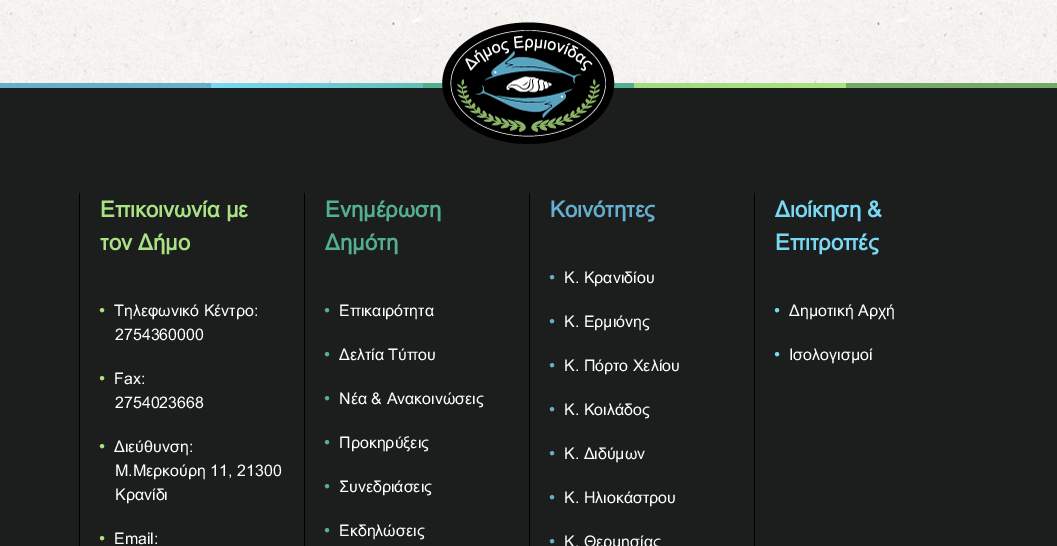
%!PS
<< /PageSize [1057 546] >> setpagedevice
/m/moveto load def
/l/rlineto load def
/z/closepath load def
/q/gsave load def
/Q_/grestore load def
/C { dup -16 bitshift 255 div exch dup -8 bitshift 255 and 255 div exch 255 and 255 div setrgbcolor } def
/F { [ exch dup neg 0 0 3 -1 roll 0 0 ] selectfont } def
/T { moveto show } def
/R { rectfill } def
/I { 5 dict begin { /h /w /y /x /name } { exch def } forall
  gsave x y translate w h scale
  w h 8 [w 0 0 h 0 0] name (r) file false 3 colorimage grestore end } def
0 546 translate 1 -1 scale
4 setmiterlimit
16#FFFFFF C
0 0 1057 546 R
(1.rgb) 0 0 1057 83 I
16#1C1E1E C
0 88 1057 458 R
q 0 83 m 1057 0 l 0 5 l -1057 0 l z clip newpath
<< /ShadingType 2 /ColorSpace /DeviceRGB /Coords [0 86 1057 85] /Extend [true true] /Function << /FunctionType 3 /Domain [0 1] /Functions [<< /FunctionType 2 /Domain [0 1] /C0 [.396 .686 .8] /C1 [.396 .686 .8] /N 1 >> << /FunctionType 2 /Domain [0 1] /C0 [.475 .851 .961] /C1 [.384 .753 .718] /N 1 >> << /FunctionType 2 /Domain [0 1] /C0 [.322 .69 .553] /C1 [.322 .69 .553] /N 1 >> << /FunctionType 2 /Domain [0 1] /C0 [.635 .859 .494] /C1 [.663 .886 .51] /N 1 >> << /FunctionType 2 /Domain [0 1] /C0 [.459 .667 .4] /C1 [.459 .667 .4] /N 1 >>] /Bounds [.2 .4 .6 .8] /Encode [0 1 0 1 0 1 0 1 0 1] >> >> shfill Q_
(2.rgb) 442 22 173 122 I
16#000000 C
79 193 1 353 R
/Arial-Bold 22 F
16#A9E282 C
(Επικοινωνία με) 100 217 T
(τον Δήμο) 100 250 T
/Arial-Bold 16 F
(•) 99 316 T
/Arial-Regular 16 F
16#FFFFFF C
(Τηλεφωνικό Κέντρο:) 114 316 T
(2754360000) 115 340 T
/Arial-Bold 16 F
16#A9E282 C
(•) 99 384 T
/Arial-Regular 16 F
16#FFFFFF C
(Fax:) 114 384 T
(2754023668) 115 408 T
/Arial-Bold 16 F
16#A9E282 C
(•) 99 452 T
/Arial-Regular 16 F
16#FFFFFF C
(Διεύθυνση:) 114 452 T
(Μ.Μερκούρη 11, 21300) 115 476 T
(Κρανίδι) 115 500 T
/Arial-Bold 16 F
16#A9E282 C
(•) 99 544 T
/Arial-Regular 16 F
16#FFFFFF C
(Email:) 114 544 T
16#000000 C
304 193 1 353 R
/Arial-Bold 22 F
16#52B08D C
(Ενημέρωση) 325 217 T
(Δημότη) 325 250 T
/Arial-Bold 16 F
(•) 324 316 T
/Arial-Regular 16 F
16#FFFFFF C
(Επικαιρότητα) 339 316 T
/Arial-Bold 16 F
16#52B08D C
(•) 324 360 T
/Arial-Regular 16 F
16#FFFFFF C
(Δελτία Τύπου) 339 360 T
/Arial-Bold 16 F
16#52B08D C
(•) 324 404 T
/Arial-Regular 16 F
16#FFFFFF C
(Νέα & Ανακοινώσεις) 339 404 T
/Arial-Bold 16 F
16#52B08D C
(•) 324 448 T
/Arial-Regular 16 F
16#FFFFFF C
(Προκηρύξεις) 339 448 T
/Arial-Bold 16 F
16#52B08D C
(•) 324 492 T
/Arial-Regular 16 F
16#FFFFFF C
(Συνεδριάσεις) 339 492 T
/Arial-Bold 16 F
16#52B08D C
(•) 324 536 T
/Arial-Regular 16 F
16#FFFFFF C
(Εκδηλώσεις) 339 536 T
16#000000 C
529 193 1 353 R
/Arial-Bold 22 F
16#65AFCC C
(Κοινότητες) 550 217 T
/Arial-Bold 16 F
(•) 549 283 T
/Arial-Regular 16 F
16#FFFFFF C
(Κ. Κρανιδίου) 564 283 T
/Arial-Bold 16 F
16#65AFCC C
(•) 549 327 T
/Arial-Regular 16 F
16#FFFFFF C
(Κ. Ερμιόνης) 564 327 T
/Arial-Bold 16 F
16#65AFCC C
(•) 549 371 T
/Arial-Regular 16 F
16#FFFFFF C
(Κ. Πόρτο Χελίου) 564 371 T
/Arial-Bold 16 F
16#65AFCC C
(•) 549 415 T
/Arial-Regular 16 F
16#FFFFFF C
(Κ. Κοιλάδος) 564 415 T
/Arial-Bold 16 F
16#65AFCC C
(•) 549 459 T
/Arial-Regular 16 F
16#FFFFFF C
(Κ. Διδύμων) 564 459 T
/Arial-Bold 16 F
16#65AFCC C
(•) 549 503 T
/Arial-Regular 16 F
16#FFFFFF C
(Κ. Ηλιοκάστρου) 564 503 T
/Arial-Bold 16 F
16#65AFCC C
(•) 549 547 T
/Arial-Regular 16 F
16#FFFFFF C
(Κ. Θερμησίας) 564 547 T
16#000000 C
754 193 1 353 R
/Arial-Bold 22 F
16#79D9F5 C
(Διοίκηση &) 775 217 T
(Επιτροπές) 775 250 T
/Arial-Bold 16 F
(•) 774 316 T
/Arial-Regular 16 F
16#FFFFFF C
(Δημοτική Αρχή) 789 316 T
/Arial-Bold 16 F
16#79D9F5 C
(•) 774 360 T
/Arial-Regular 16 F
16#FFFFFF C
(Ισολογισμοί) 789 360 T
showpage
